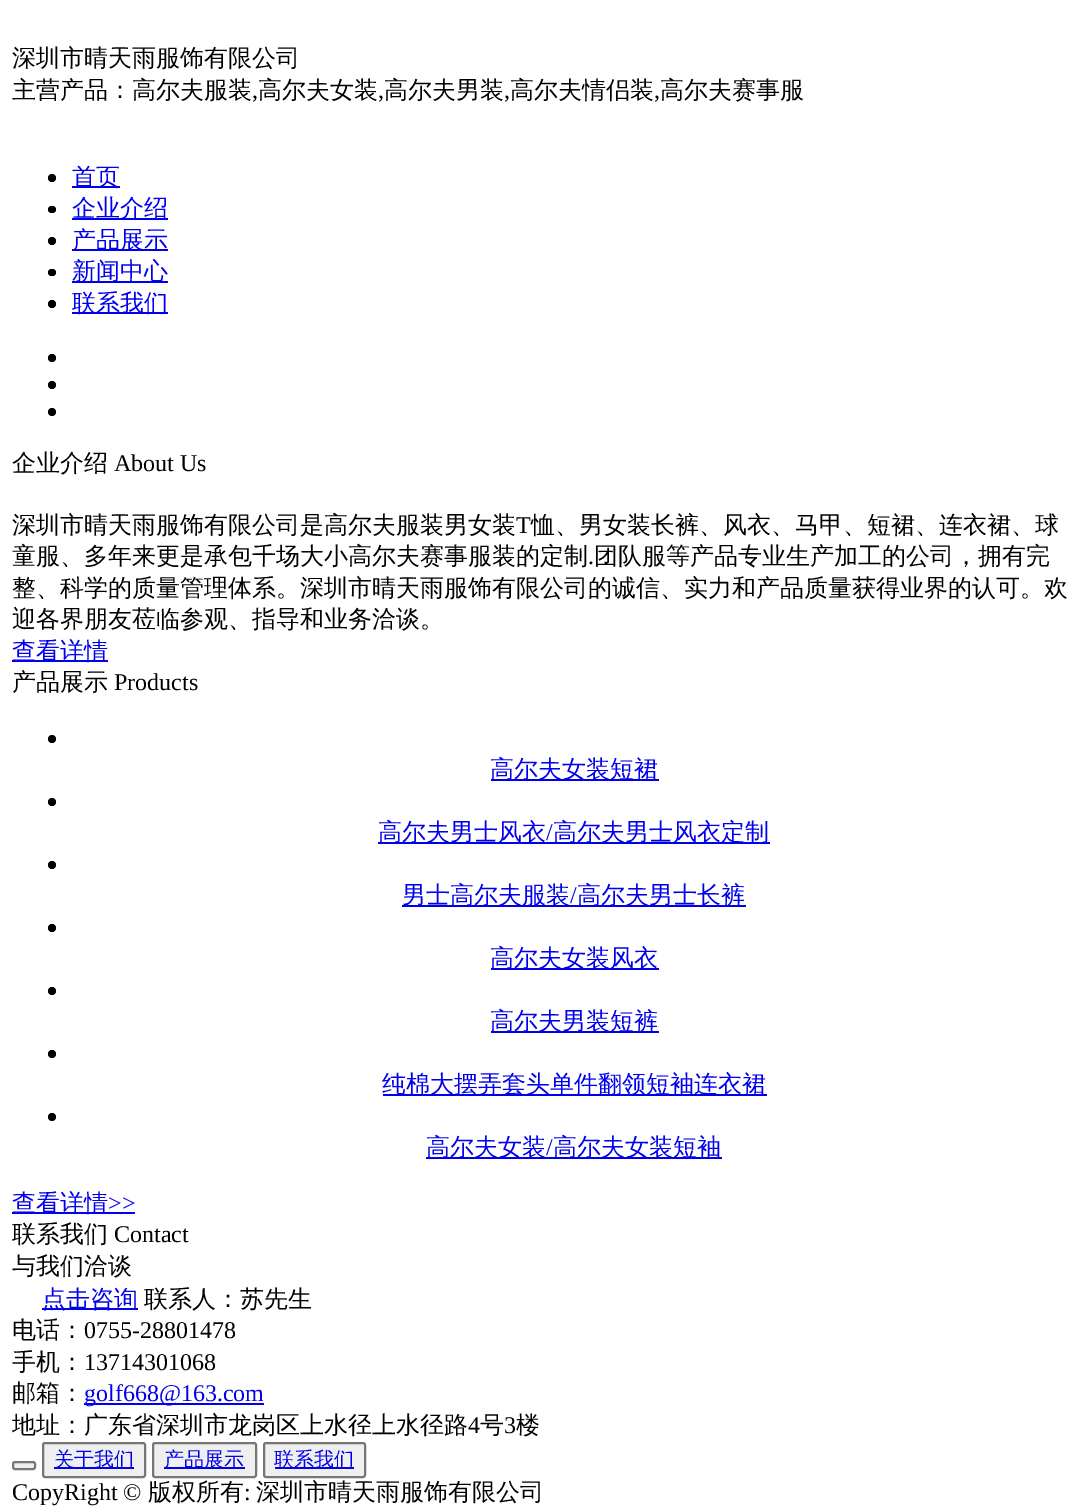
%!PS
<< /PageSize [1087 1512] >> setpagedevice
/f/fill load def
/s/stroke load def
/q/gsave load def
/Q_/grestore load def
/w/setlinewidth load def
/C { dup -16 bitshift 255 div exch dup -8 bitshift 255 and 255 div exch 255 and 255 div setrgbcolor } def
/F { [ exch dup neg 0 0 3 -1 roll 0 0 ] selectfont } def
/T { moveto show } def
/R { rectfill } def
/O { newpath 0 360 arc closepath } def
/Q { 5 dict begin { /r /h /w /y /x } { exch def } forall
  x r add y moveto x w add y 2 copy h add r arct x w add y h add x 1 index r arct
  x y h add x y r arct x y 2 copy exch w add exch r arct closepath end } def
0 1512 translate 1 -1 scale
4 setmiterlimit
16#FFFFFF C
0 0 1087 1512 R
/WenQuanYiZenHei-Medium 24 F
16#000000 C
(深圳市晴天雨服饰有限公司) 12 66 T
(主营产品：高尔夫服装) 12 98 T
/LiberationSerif-Regular 24 F
(,) 252 98 T
/WenQuanYiZenHei-Medium 24 F
(高尔夫女装) 258 98 T
/LiberationSerif-Regular 24 F
(,) 378 98 T
/WenQuanYiZenHei-Medium 24 F
(高尔夫男装) 384 98 T
/LiberationSerif-Regular 24 F
(,) 504 98 T
/WenQuanYiZenHei-Medium 24 F
(高尔夫情侣装) 510 98 T
/LiberationSerif-Regular 24 F
(,) 654 98 T
/WenQuanYiZenHei-Medium 24 F
(高尔夫赛事服) 660 98 T
52 178 4 O f
16#0000EE C
72 186 48 2 R
(首页) 72 185 T
16#000000 C
48 206 8 7 3.5 Q f
16#0000EE C
72 218 96 2 R
(企业介绍) 72 216 T
16#000000 C
52 241 4 O f
16#0000EE C
72 249 96 2 R
(产品展示) 72 248 T
16#000000 C
48 269 8 7 3.5 Q f
16#0000EE C
72 281 96 2 R
(新闻中心) 72 279 T
16#000000 C
52 304 4 O f
16#0000EE C
72 312 96 2 R
(联系我们) 72 311 T
16#000000 C
52 358 4 O f
52 385 4 O f
52 412 4 O f
(企业介绍) 12 471 T
/LiberationSerif-Regular 24 F
(About Us) 114 471 T
/WenQuanYiZenHei-Medium 24 F
(深圳市晴天雨服饰有限公司是高尔夫服装男女装) 12 533 T
/LiberationSerif-Regular 24 F
(T) 516 533 T
/WenQuanYiZenHei-Medium 24 F
(恤、男女装长裤、风衣、马甲、短裙、连衣裙、球) 531 533 T
(童服、多年来更是承包千场大小高尔夫赛事服装的定制) 12 564 T
/LiberationSerif-Regular 24 F
(.) 588 564 T
/WenQuanYiZenHei-Medium 24 F
(团队服等产品专业生产加工的公司，拥有完) 594 564 T
(整、科学的质量管理体系。深圳市晴天雨服饰有限公司的诚信、实力和产品质量获得业界的认可。欢) 12 596 T
(迎各界朋友莅临参观、指导和业务洽谈。) 12 627 T
16#0000EE C
12 660 96 2 R
(查看详情) 12 659 T
16#000000 C
(产品展示) 12 690 T
/LiberationSerif-Regular 24 F
(Products) 114 690 T
52 739 4 O f
16#0000EE C
491 779 168 2 R
/WenQuanYiZenHei-Medium 24 F
(高尔夫女装短裙) 490 777 T
16#000000 C
52 802 4 O f
16#0000EE C
378 842 392 2 R
(高尔夫男士风衣) 378 840 T
/LiberationSerif-Regular 24 F
(/) 546 840 T
/WenQuanYiZenHei-Medium 24 F
(高尔夫男士风衣定制) 553 840 T
16#000000 C
52 865 4 O f
16#0000EE C
402 905 344 2 R
(男士高尔夫服装) 402 903 T
/LiberationSerif-Regular 24 F
(/) 570 903 T
/WenQuanYiZenHei-Medium 24 F
(高尔夫男士长裤) 577 903 T
16#000000 C
52 928 4 O f
16#0000EE C
491 968 168 2 R
(高尔夫女装风衣) 490 966 T
16#000000 C
52 991 4 O f
16#0000EE C
491 1031 168 2 R
(高尔夫男装短裤) 490 1029 T
16#000000 C
52 1054 4 O f
16#0000EE C
383 1094 384 2 R
(纯棉大摆弄套头单件翻领短袖连衣裙) 382 1092 T
16#000000 C
52 1117 4 O f
16#0000EE C
426 1157 296 2 R
(高尔夫女装) 426 1155 T
/LiberationSerif-Regular 24 F
(/) 546 1155 T
/WenQuanYiZenHei-Medium 24 F
(高尔夫女装短袖) 553 1155 T
12 1212 123 2 R
(查看详情) 12 1211 T
/LiberationSerif-Regular 24 F
(>>) 108 1211 T
/WenQuanYiZenHei-Medium 24 F
16#000000 C
(联系我们) 12 1242 T
/LiberationSerif-Regular 24 F
(Contact) 114 1242 T
/WenQuanYiZenHei-Medium 24 F
(与我们洽谈) 12 1274 T
16#0000EE C
42 1308 96 2 R
(点击咨询) 42 1307 T
16#000000 C
(联系人：苏先生) 144 1307 T
(电话：) 12 1338 T
/LiberationSerif-Regular 24 F
(0755-28801478) 84 1338 T
/WenQuanYiZenHei-Medium 24 F
(手机：) 12 1370 T
/LiberationSerif-Regular 24 F
(13714301068) 84 1370 T
/WenQuanYiZenHei-Medium 24 F
(邮箱：) 12 1401 T
16#0000EE C
84 1403 180 2 R
/LiberationSerif-Regular 24 F
(golf668@163.com) 84 1401 T
/WenQuanYiZenHei-Medium 24 F
16#000000 C
(地址：广东省深圳市龙岗区上水径上水径路) 12 1433 T
/LiberationSerif-Regular 24 F
(4) 468 1433 T
/WenQuanYiZenHei-Medium 24 F
(号) 480 1433 T
/LiberationSerif-Regular 24 F
(3) 504 1433 T
/WenQuanYiZenHei-Medium 24 F
(楼) 516 1433 T
16#EFEFEF C
13 1462 22 7 2 Q q f Q_
16#767676 C
2 w
s
16#EFEFEF C
43 1443 102 34 2 Q q f Q_
16#767676 C
s
16#0000EE C
54 1467 80 2 R
/WenQuanYiZenHei-Medium 20 F
(关于我们) 54 1466 T
16#EFEFEF C
153 1443 103 34 2 Q q f Q_
16#767676 C
s
16#0000EE C
164 1467 81 2 R
(产品展示) 164 1466 T
16#EFEFEF C
264 1443 101 34 2 Q q f Q_
16#767676 C
s
16#0000EE C
275 1467 79 2 R
(联系我们) 274 1466 T
/LiberationSerif-Regular 24 F
16#000000 C
(CopyRight ©) 12 1500 T
/WenQuanYiZenHei-Medium 24 F
(版权所有) 148 1500 T
/LiberationSerif-Regular 24 F
(:) 244 1500 T
/WenQuanYiZenHei-Medium 24 F
(深圳市晴天雨服饰有限公司) 256 1500 T
showpage
